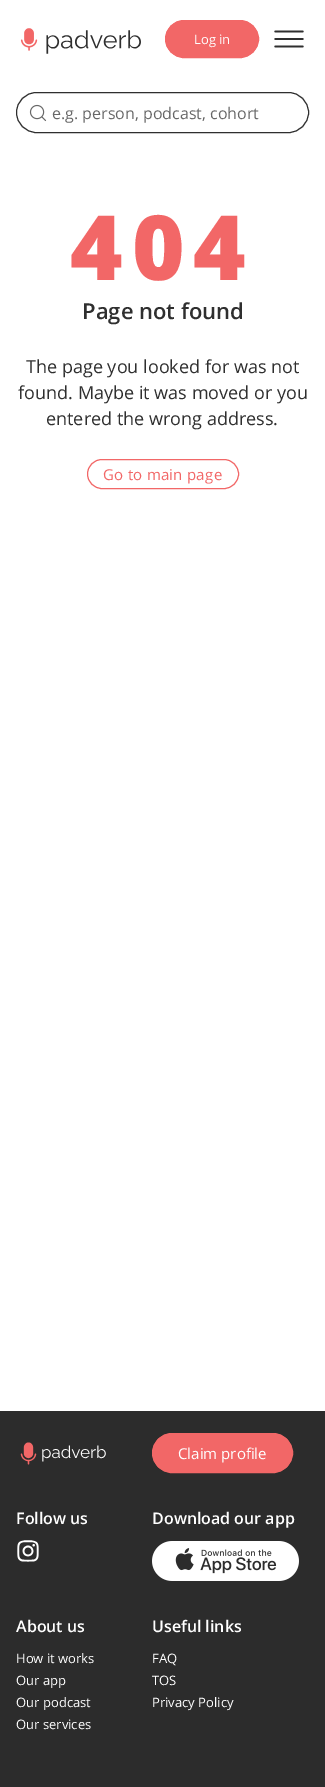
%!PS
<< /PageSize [325 1787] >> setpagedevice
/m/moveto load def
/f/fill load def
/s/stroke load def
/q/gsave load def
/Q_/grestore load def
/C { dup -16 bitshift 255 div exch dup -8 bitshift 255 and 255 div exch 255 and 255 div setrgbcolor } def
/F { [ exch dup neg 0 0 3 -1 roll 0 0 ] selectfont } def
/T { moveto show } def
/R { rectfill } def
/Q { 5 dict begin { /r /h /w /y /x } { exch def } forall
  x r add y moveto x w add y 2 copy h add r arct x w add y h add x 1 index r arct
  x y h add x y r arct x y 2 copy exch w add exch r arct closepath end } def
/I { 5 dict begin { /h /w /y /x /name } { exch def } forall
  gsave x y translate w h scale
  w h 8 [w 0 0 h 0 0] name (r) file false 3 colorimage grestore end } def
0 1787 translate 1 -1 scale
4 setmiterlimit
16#FFFFFF C
0 0 325 1787 R
(1.rgb) 20 28 121 26 I
16#F26767 C
165.5 20.5 93 37 18.5 Q q f Q_
s
/OpenSans-Regular 13 F
16#FFFFFF C
(Log in) 194 44 T
(2.rgb) 274 30 30 18 I
(3.rgb) 29 104 18 18 I
16#2F2F2F C
16.5 92.5 292 40 20 Q s
/OpenSans-Regular 16 F
16#686868 C
(e.g. person, podcast, cohort) 52 119 T
/OpenSans-ExtraBold 90 F
16#F26767 C
70 280 m 9 0 (404) ashow
/OpenSans-SemiBold 22 F
16#2F2F2F C
(Page not found) 82 319 T
/OpenSans-Regular 18 F
(The page you looked for was not) 26 373 T
(found. Maybe it was moved or you) 18 399 T
(entered the wrong address.) 46 425 T
16#F26767 C
87.5 459.5 151 29 14.5 Q s
/OpenSans-Regular 15 F
103 480 m .25 0 (Go to main page) ashow
16#2C2C2C C
0 1411 325 376 R
(4.rgb) 20 1442 86 23 I
16#F26767 C
152.5 1433.5 140 39 19.5 Q q f Q_
s
16#FFFFFF C
(Claim profile) 178 1459 T
/OpenSans-SemiBold 16 F
(Follow us) 16 1524 T
(5.rgb) 17 1540 22 22 I
(Download our app) 152 1524 T
(6.rgb) 152 1541 147 40 I
(About us) 16 1632 T
/OpenSans-Regular 13 F
(How it works) 16 1663 T
(Our app) 16 1685 T
(Our podcast) 16 1707 T
(Our services) 16 1729 T
/OpenSans-SemiBold 16 F
(Useful links) 152 1632 T
/OpenSans-Regular 13 F
(FAQ) 152 1663 T
(TOS) 152 1685 T
(Privacy Policy) 152 1707 T
showpage
